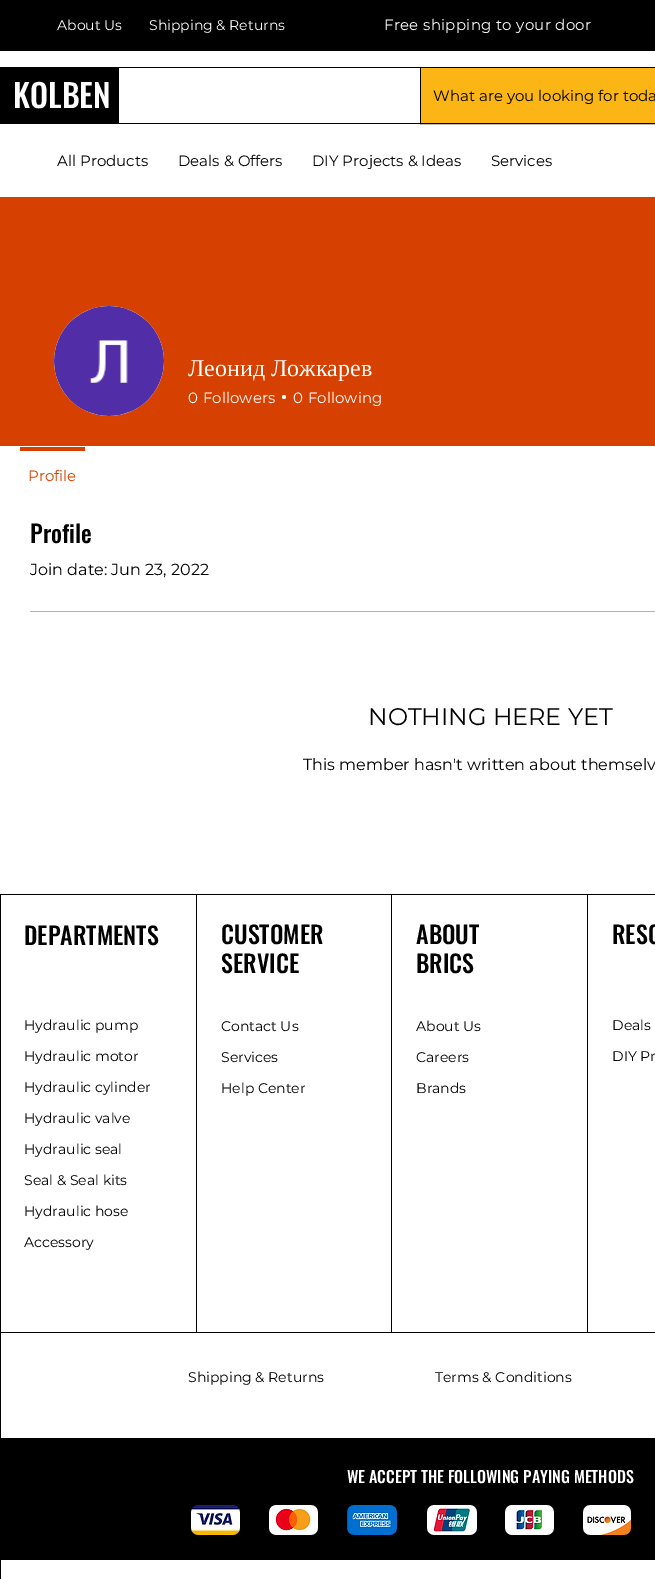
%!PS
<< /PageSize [655 1579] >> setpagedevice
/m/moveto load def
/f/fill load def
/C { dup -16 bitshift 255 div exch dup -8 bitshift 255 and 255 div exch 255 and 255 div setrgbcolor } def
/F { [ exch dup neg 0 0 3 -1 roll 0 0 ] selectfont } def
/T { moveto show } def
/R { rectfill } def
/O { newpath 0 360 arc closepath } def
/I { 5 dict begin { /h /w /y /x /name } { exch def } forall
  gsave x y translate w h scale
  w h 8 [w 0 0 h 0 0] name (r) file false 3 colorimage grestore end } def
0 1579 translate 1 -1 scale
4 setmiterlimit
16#FFFFFF C
0 0 655 1579 R
16#000000 C
0 0 655 51 R
/Montserrat-Regular 14 F
16#FFFFFF C
(About Us) 57 30 T
(Shipping & Returns) 149 30 T
/Montserrat-Regular 15 F
384 30 m .3 0 (Free shipping to your door) ashow
16#000000 C
0 67 420 57 R
/Oswald-Medium 32 F
16#FFFFFF C
(KOLBEN) 13 108 T
119 68 301 55 R
16#000000 C
420.5 67.5 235 56 rectstroke
16#FBB615 C
421 68 234 55 R
/Montserrat-Regular 15 F
16#000000 C
(What are you looking for toda) 433 101 T
(All Products) 57 166 T
(Deals & Offers) 178 166 T
(DIY Projects & Ideas) 312 166 T
(Services) 491 166 T
16#D64000 C
0 197 655 249 R
16#D8D8D8 C
109 361 55 O f
(1.rgb) 54 306 110 110 I
/LiberationSerif-Regular 24 F
16#FFFFFF C
(Леонид Ложкарев) 188 376 T
/Montserrat-Regular 15 F
(0) 188 403 T
(Followers) 203 403 T
284 397 2 O f
(0) 293 403 T
(Following) 308 403 T
16#D64000 C
20 447 65 4 R
(Profile) 28 481 T
/Oswald-Medium 24 F
16#000000 C
(Profile) 30 543 T
/Montserrat-Regular 16 F
(Join date: Jun 23, 2022) 30 575 T
16#B3B3B3 C
30 611 625 1 R
/Montserrat-Regular 24 F
16#000000 C
(NOTHING HERE YET) 368 725 T
/Montserrat-Regular 16 F
(This member hasn't written about themselv) 303 770 T
0 894 655 685 R
16#FFFFFF C
1 895 195 437 R
/Oswald-Medium 24 F
16#000000 C
(DEPARTMENTS) 24 945 T
/Montserrat-Regular 14 F
(Hydraulic pump) 24 1030 T
(Hydraulic motor) 24 1061 T
(Hydraulic cylinder) 24 1092 T
(Hydraulic valve) 24 1123 T
(Hydraulic seal) 24 1154 T
(Seal & Seal kits) 24 1185 T
(Hydraulic hose) 24 1216 T
(Accessory) 24 1247 T
16#FFFFFF C
197 895 194 437 R
/Oswald-Medium 24 F
16#000000 C
(CUSTOMER) 221 944 T
(SERVICE) 221 973 T
/Montserrat-Regular 14 F
(Contact Us) 221 1031 T
(Services) 221 1062 T
(Help Center) 221 1093 T
16#FFFFFF C
392 895 195 437 R
/Oswald-Medium 24 F
16#000000 C
(ABOUT) 416 944 T
(BRICS) 416 973 T
/Montserrat-Regular 14 F
(About Us) 416 1031 T
(Careers) 416 1062 T
(Brands) 416 1093 T
16#FFFFFF C
588 895 67 437 R
/Oswald-Medium 24 F
16#000000 C
(RESO) 612 944 T
/Montserrat-Regular 14 F
(Deals) 612 1030 T
(DIY Pr) 612 1061 T
16#FFFFFF C
1 1333 654 105 R
16#000000 C
(Shipping & Returns) 188 1382 T
(Terms & Conditions) 435 1382 T
/Oswald-Medium 16 F
16#FFFFFF C
(WE ACCEPT THE FOLLOWING PAYING METHODS) 347 1483 T
(2.rgb) 191 1505 49 30 I
(3.rgb) 269 1505 49 30 I
(4.rgb) 347 1505 50 30 I
(5.rgb) 427 1505 50 30 I
(6.rgb) 505 1505 49 30 I
(7.rgb) 583 1505 48 30 I
1 1560 654 19 R
showpage
